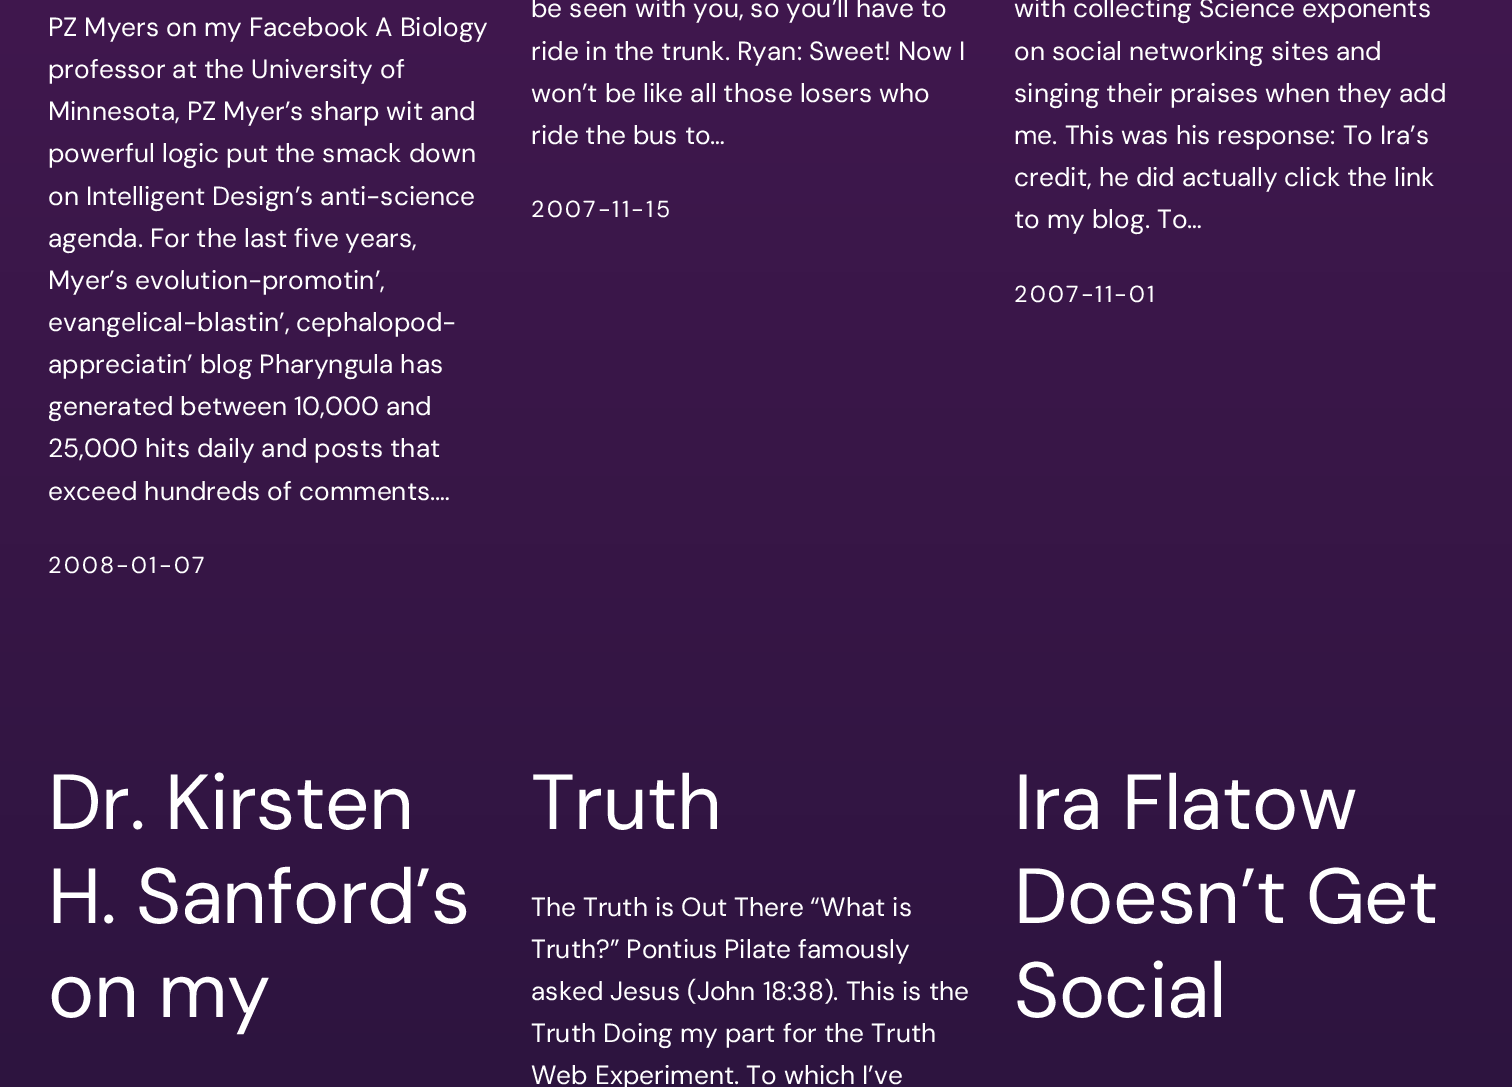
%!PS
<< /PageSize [1512 1087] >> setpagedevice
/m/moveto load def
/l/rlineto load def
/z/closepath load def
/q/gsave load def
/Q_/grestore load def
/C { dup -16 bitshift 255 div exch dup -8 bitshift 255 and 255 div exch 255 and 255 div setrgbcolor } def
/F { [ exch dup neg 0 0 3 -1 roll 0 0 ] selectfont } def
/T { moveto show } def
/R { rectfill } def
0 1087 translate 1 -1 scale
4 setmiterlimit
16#FFFFFF C
0 0 1512 1087 R
q 0 0 m 1512 0 l 0 1087 l -1512 0 l z clip newpath
<< /ShadingType 2 /ColorSpace /DeviceRGB /Coords [756 -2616 756 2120] /Extend [true true] /Function << /FunctionType 3 /Domain [0 1] /Functions [<< /FunctionType 2 /Domain [0 1] /C0 [.333 .11 .369] /C1 [.333 .11 .369] /N 1 >> << /FunctionType 2 /Domain [0 1] /C0 [.333 .11 .369] /C1 [.106 .063 .192] /N 1 >>] /Bounds [.3] /Encode [0 1 0 1] >> >> shfill Q_
/DMSans-Regular 26.3 F
(PZ Myers on my Facebook A Biology) 48 36 T
(professor at the University of) 48 78 T
(Minnesota, PZ Myer’s sharp wit and) 48 120 T
(powerful logic put the smack down) 48 162 T
(on Intelligent Design’s anti-science) 48 205 T
(agenda. For the last five years,) 48 247 T
(Myer’s evolution-promotin’,) 48 289 T
(evangelical-blastin’, cephalopod-) 48 331 T
(appreciatin’ blog Pharyngula has) 48 373 T
(generated between 10,000 and) 48 415 T
(25,000 hits daily and posts that) 48 457 T
(exceed hundreds of comments.…) 48 500 T
/DMSans-Regular 23.25 F
48 573 m 2.25 0 (2008-01-07) ashow
/DMSans-Regular 26.3 F
(be seen with you, so you’ll have to) 531 17 T
(ride in the trunk. Ryan: Sweet! Now I) 531 60 T
(won’t be like all those losers who) 531 102 T
(ride the bus to…) 531 144 T
/DMSans-Regular 23.25 F
531 217 m 2.25 0 (2007-11-15) ashow
/DMSans-Regular 26.3 F
(with collecting Science exponents) 1014 17 T
(on social networking sites and) 1014 60 T
(singing their praises when they add) 1014 102 T
(me. This was his response: To Ira’s) 1014 144 T
(credit, he did actually click the link) 1014 186 T
(to my blog. To…) 1014 228 T
/DMSans-Regular 23.25 F
1014 302 m 2.25 0 (2007-11-01) ashow
/DMSans-Regular 78 F
48 829 m -.5 0 (Dr. Kirsten) ashow
48 923 m -.5 0 (H. Sanford’s) ashow
48 1017 m -.5 0 (on my) ashow
531 829 m -.5 0 (Truth) ashow
/DMSans-Regular 26.3 F
(The Truth is Out There “What is) 531 916 T
(Truth?” Pontius Pilate famously) 531 958 T
(asked Jesus \(John 18:38\). This is the) 531 1000 T
(Truth Doing my part for the Truth) 531 1042 T
(Web Experiment. To which I’ve) 531 1084 T
/DMSans-Regular 78 F
1014 829 m -.5 0 (Ira Flatow) ashow
1014 923 m -.5 0 (Doesn’t Get) ashow
1014 1017 m -.5 0 (Social) ashow
showpage
